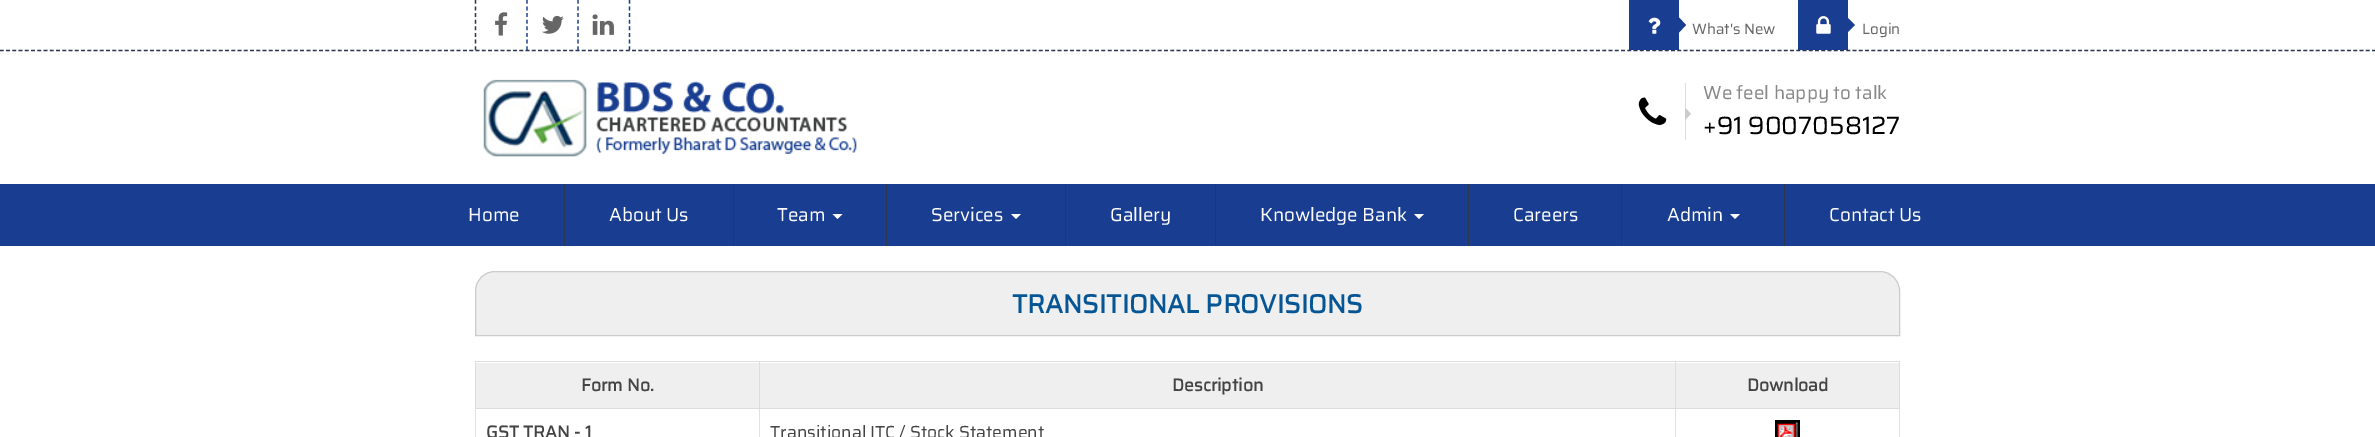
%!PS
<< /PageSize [2375 437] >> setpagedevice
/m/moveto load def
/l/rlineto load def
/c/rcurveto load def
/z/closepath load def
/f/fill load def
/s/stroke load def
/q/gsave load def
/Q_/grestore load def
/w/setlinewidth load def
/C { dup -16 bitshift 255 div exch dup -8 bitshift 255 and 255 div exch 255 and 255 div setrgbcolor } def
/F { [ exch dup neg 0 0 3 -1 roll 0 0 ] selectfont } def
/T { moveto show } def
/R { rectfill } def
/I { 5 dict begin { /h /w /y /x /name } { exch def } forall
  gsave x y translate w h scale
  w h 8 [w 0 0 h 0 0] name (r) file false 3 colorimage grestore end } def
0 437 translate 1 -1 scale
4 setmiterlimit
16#FFFFFF C
0 0 2375 437 R
16#2C374B C
1.2 w
[3.75 2.51] 0 setdash
-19 50.5 m 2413 0 l s
[3.75 2.86] 0 setdash
475.5 0 m 0 50 l s
16#193E91 C
527 0 m 0 50 l s
(1.rgb) 495 12 13 24 I
578 0 m 0 50 l s
(2.rgb) 542 15 22 19 I
629.5 0 m 0 50 l s
(3.rgb) 592 14 22 21 I
1679 32.5 m 0 -15 l 7 7.5 l z f
1629 0 50 50 R
(4.rgb) 1648 17 13 17 I
/Saira-Regular 15 F
16#666666 C
(What's New) 1692 34 T
16#193E91 C
1798 0 50 50 R
1847.5 32.5 m 0 -15 l 7.5 7.5 l z f
(5.rgb) 1816 16 15 18 I
16#666666 C
(Login) 1862 34 T
(6.rgb) 483 79 374 78 I
16#DDDDDD C
1685 83 1 57 R
(7.rgb) 1638 97 29 28 I
/Saira-Regular 18.75 F
16#888888 C
(We feel happy to talk) 1703 99 T
16#CCCCCC C
1685 120 m 0 -12.5 l 6 6.5 l z f
/Saira-Regular 25 F
16#000000 C
(+91 9007058127) 1703 134 T
16#193E91 C
0 184 2375 62 R
16#2C374B C
564 184 1 62 R
/Saira-Regular 18.75 F
16#FFFFFF C
(Home) 468 221 T
16#2C374B C
733 184 1 62 R
16#FFFFFF C
(About Us) 609 221 T
16#2C374B C
886 184 1 62 R
16#FFFFFF C
(Team) 777 221 T
832.5 214 m 10 0 l -5 5 l z f
16#2C374B C
1065 184 1 62 R
16#FFFFFF C
(Services) 931 221 T
1011 214 m 10 0 l -5 5 l z f
16#2C374B C
1215 184 1 62 R
16#FFFFFF C
(Gallery) 1110 221 T
16#2C374B C
1468 184 1 62 R
16#FFFFFF C
(Knowledge Bank) 1260 221 T
1414 214 m 10 0 l -5 5 l z f
16#2C374B C
1621 184 1 62 R
16#FFFFFF C
(Careers) 1513 221 T
16#2C374B C
1784 184 1 62 R
16#FFFFFF C
(Admin) 1667 221 T
1730 214 m 10 0 l -5 5 l z f
(Contact Us) 1829 221 T
16#EFEFEF C
495 271.5 m 1385 0 l 11 0 19.5 8.5 19.5 19.5 c 0 44.5 l -1424 0 l 0 -44.5 l 0 -11 8.5 -19.5 19.5 -19.5 c z q f Q_
16#CCCCCC C
1 w
[] 0 setdash
s
/Saira-Bold 26.25 F
16#065695 C
(TRANSITIONAL PROVISIONS) 1012 313 T
16#DEE2E6 C
1899 409 1 28 R
475 409 1 28 R
16#EFEFEF C
476 363 283 45 R
16#DDDDDD C
1675 361 225 1 R
1899 361 1 48 R
16#DEE2E6 C
1675 408 1 29 R
16#DDDDDD C
1675 408 225 1 R
1675 361 1 48 R
759 361 917 1 R
16#DEE2E6 C
759 408 1 29 R
16#DDDDDD C
759 408 917 1 R
759 361 1 48 R
475 361 285 1 R
475 408 285 1 R
475 361 1 48 R
/Saira-Bold 17.5 F
16#444444 C
(Form No.) 581 391 T
16#EFEFEF C
760 363 915 45 R
16#444444 C
(Description) 1172 391 T
16#EFEFEF C
1676 363 223 45 R
16#444444 C
(Download) 1747 391 T
(GST TRAN - 1) 486 438 T
/Saira-Regular 17.5 F
(Transitional ITC / Stock Statement) 770 438 T
(8.rgb) 1775 420 25 17 I
showpage
